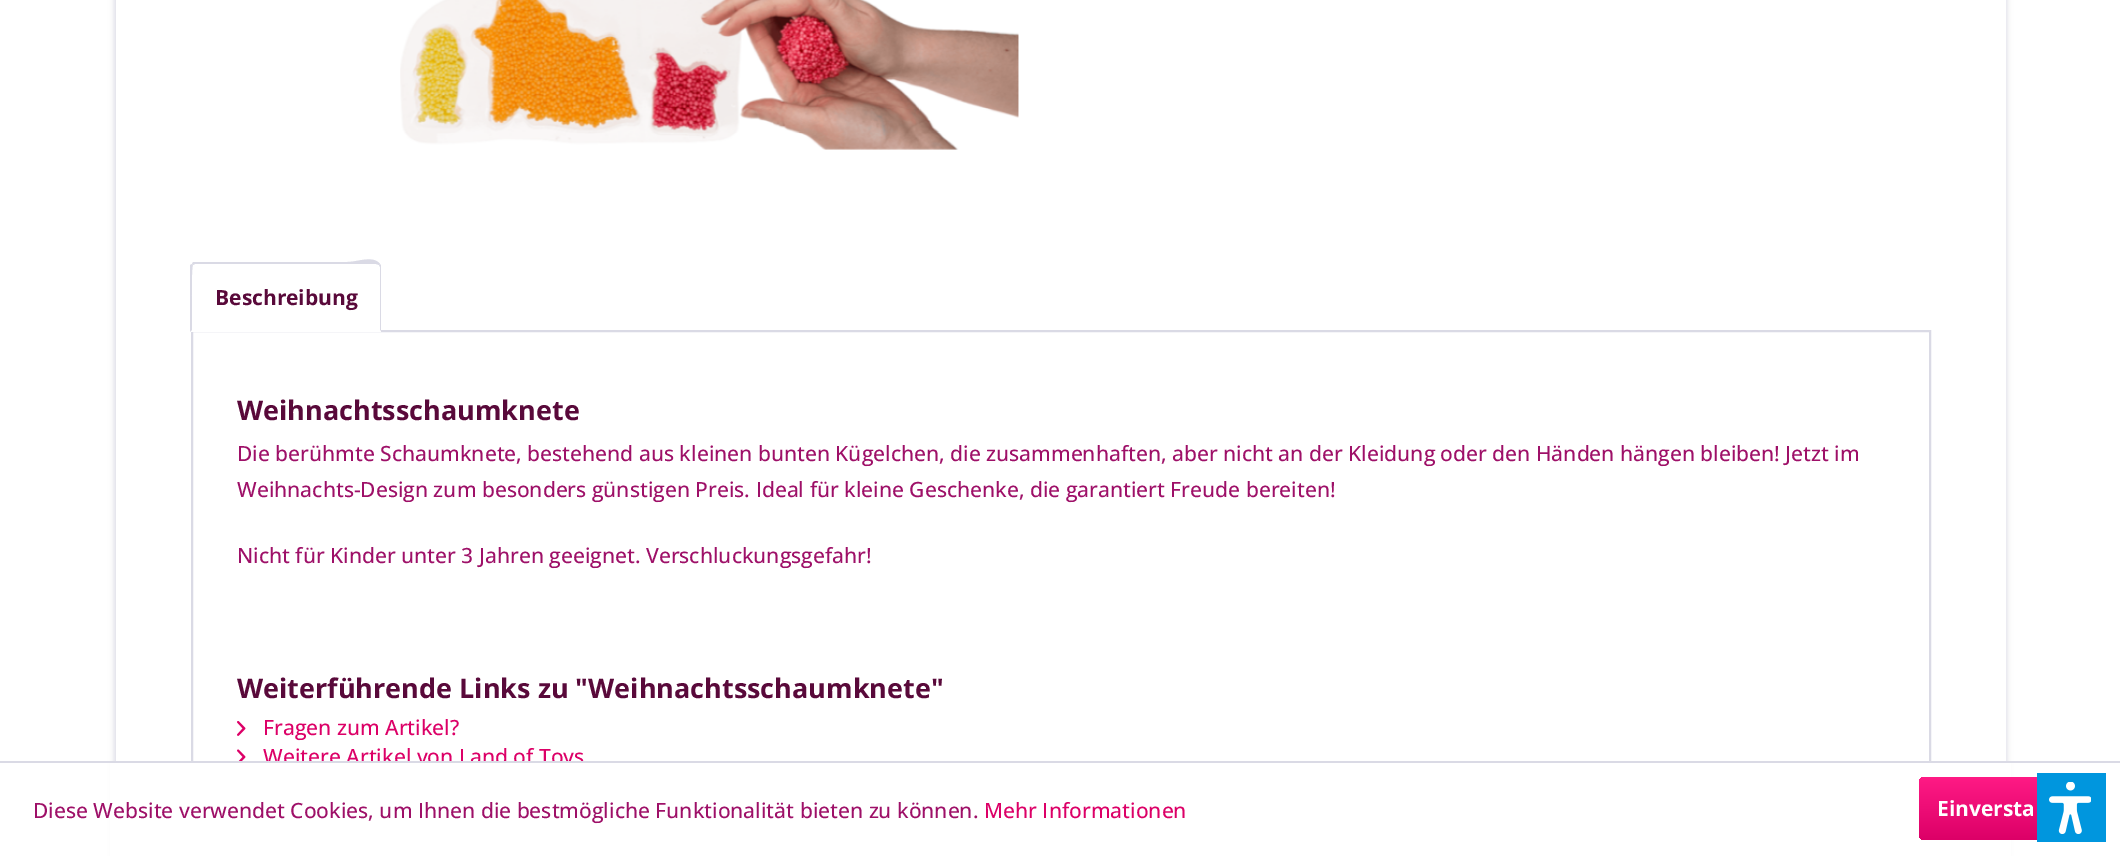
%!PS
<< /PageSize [2120 856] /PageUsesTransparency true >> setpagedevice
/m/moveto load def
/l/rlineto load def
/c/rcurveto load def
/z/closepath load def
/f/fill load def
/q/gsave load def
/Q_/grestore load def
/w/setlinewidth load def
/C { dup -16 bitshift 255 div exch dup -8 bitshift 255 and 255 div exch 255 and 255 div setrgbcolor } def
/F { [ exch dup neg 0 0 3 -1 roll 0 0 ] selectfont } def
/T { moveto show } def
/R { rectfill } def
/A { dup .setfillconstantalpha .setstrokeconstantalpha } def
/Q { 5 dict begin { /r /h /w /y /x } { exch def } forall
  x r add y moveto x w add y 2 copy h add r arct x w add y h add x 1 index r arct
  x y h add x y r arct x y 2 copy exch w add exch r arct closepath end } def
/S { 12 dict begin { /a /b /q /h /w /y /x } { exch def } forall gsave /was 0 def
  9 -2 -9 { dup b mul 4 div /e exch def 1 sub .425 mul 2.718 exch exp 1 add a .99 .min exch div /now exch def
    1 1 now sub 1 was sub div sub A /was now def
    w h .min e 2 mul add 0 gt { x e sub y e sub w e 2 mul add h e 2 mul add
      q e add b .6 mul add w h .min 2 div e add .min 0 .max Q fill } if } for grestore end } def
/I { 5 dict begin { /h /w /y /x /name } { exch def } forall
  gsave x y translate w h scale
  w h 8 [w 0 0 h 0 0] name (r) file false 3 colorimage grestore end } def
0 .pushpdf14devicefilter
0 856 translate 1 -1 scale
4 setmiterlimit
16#FFFFFF C
0 0 2120 856 R
16#DADAE5 C
114 -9 1893 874 0 3 1 S
16#FFFFFF C
116 0 1890 761 R
(1.rgb) 400 0 619 150 I
16#DADAE5 C
2 w
192 331 1738 484 rectstroke
16#FFFFFF C
196 263 m 180 0 l 3 0 5 2 5 5 c 0 64 l -190 0 l 0 -64 l 0 -3 2 -5 5 -5 c z f
16#DADAE5 C
195 264 m -2 1 l -1 -1 l 1 -2 l 154 0 l 11 0 26 -7 33 2 c -1 1 l -3 -1 l z f
381 332 m 0 -65 l 0 -1 0 -2 -1 -3 c -1 1 l 1 2 l 0 63 l z f
16#FFFFFF C
381 332 m -1 -2 l -188 0 l -2 2 l z f
16#DADAE5 C
190 332 m 0 -67 l 2 -1 l 1 1 l -2 1 -1 58 -1 65 c z f
/OpenSans-Bold 21 F
16#59093A C
(Beschreibung) 215 305 T
/OpenSans-Bold 27 F
(Weihnachtsschaumknete) 237 420 T
/OpenSans-Medium 21 F
16#9E1068 C
(Die berühmte Schaumknete, bestehend aus kleinen bunten Kügelchen, die zusammenhaften, aber nicht an der Kleidung oder den Händen hängen bleiben! Jetzt im) 237 461 T
(Weihnachts-Design zum besonders günstigen Preis. Ideal für kleine Geschenke, die garantiert Freude bereiten!) 237 497 T
(Nicht für Kinder unter 3 Jahren geeignet. Verschluckungsgefahr!) 237 563 T
/OpenSans-Bold 27 F
16#59093A C
(Weiterführende Links zu "Weihnachtsschaumknete") 237 698 T
(2.rgb) 237 721 9 15 I
/OpenSans-Medium 21 F
16#DC0067 C
(Fragen zum Artikel?) 263 735 T
(3.rgb) 237 749 9 12 I
(Weitere Artikel von Land of Toys) 263 764 T
16#FFFFFF C
110 763 1901 93 R
16#DADAE5 C
0 761 2120 2 R
16#9E1068 C
(Diese Website verwendet Cookies, um Ihnen die bestmögliche Funktionalität bieten zu können.) 33 818 T
16#DC0067 C
(Mehr Informationen) 984 818 T
q 1919 777 187 63 5 Q clip newpath
<< /ShadingType 2 /ColorSpace /DeviceRGB /Coords [2012 777 2012 840] /Extend [true true] /Function << /FunctionType 2 /Domain [0 1] /C0 [1 .102 .522] /C1 [.863 0 .404] /N 1 >> >> shfill Q_
/OpenSans-Bold 21 F
16#FFFFFF C
(Einversta) 1937 816 T
16#0096DE C
2037 773 69 69 R
(4.rgb) 2049 782 42 52 I
.poppdf14devicefilter showpage
